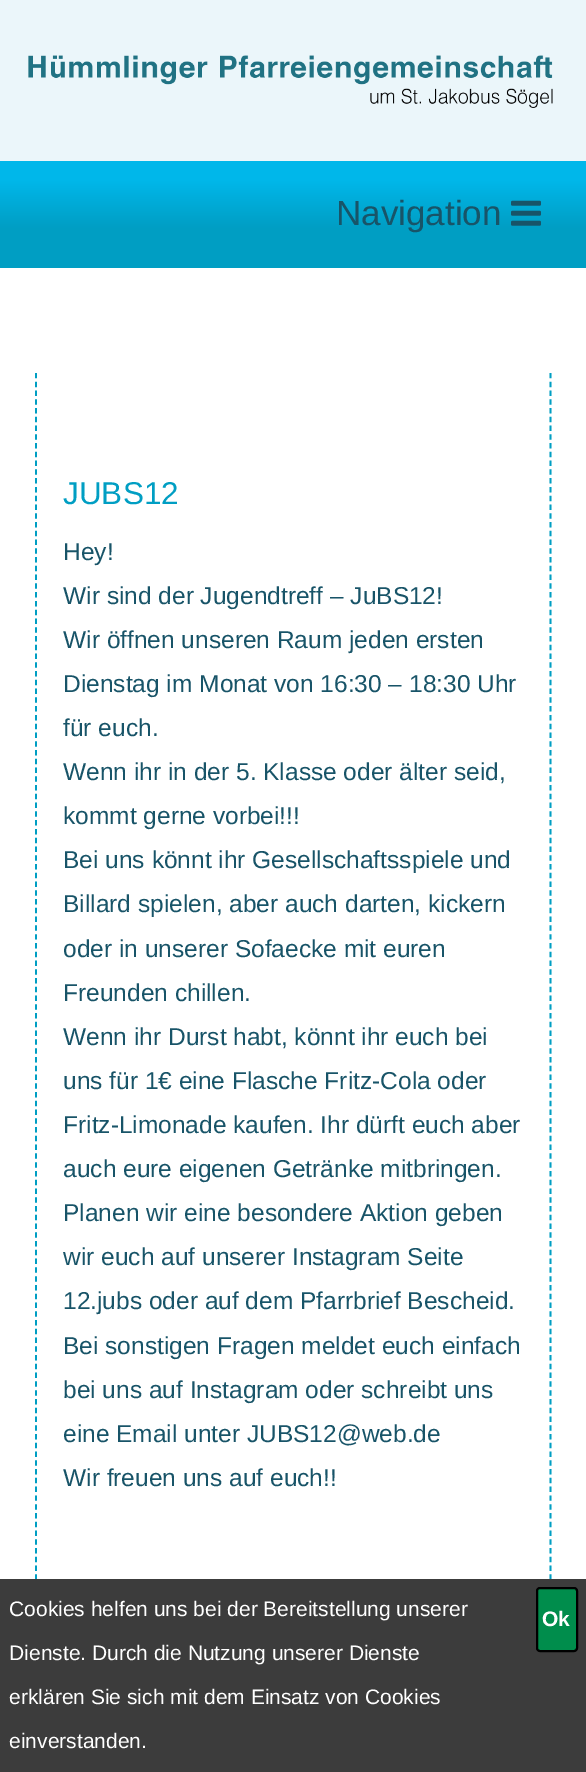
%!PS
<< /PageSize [586 1772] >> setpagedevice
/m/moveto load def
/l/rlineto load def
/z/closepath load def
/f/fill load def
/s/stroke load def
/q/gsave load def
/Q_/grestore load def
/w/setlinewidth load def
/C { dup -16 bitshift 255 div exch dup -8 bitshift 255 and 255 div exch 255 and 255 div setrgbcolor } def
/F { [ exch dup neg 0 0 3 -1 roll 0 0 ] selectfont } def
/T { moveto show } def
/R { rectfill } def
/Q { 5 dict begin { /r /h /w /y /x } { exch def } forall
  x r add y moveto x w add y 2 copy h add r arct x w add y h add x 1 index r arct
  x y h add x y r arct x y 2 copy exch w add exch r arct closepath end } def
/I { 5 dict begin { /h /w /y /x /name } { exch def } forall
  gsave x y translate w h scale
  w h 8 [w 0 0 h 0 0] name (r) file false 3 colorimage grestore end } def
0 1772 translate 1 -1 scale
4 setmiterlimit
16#FFFFFF C
0 0 586 1772 R
16#EBF6FA C
0 0 586 161 R
(1.rgb) 28 55 525 53 I
q 0 161 m 586 0 l 0 107 l -586 0 l z clip newpath
<< /ShadingType 2 /ColorSpace /DeviceRGB /Coords [293 161 293 268] /Extend [true true] /Function << /FunctionType 3 /Domain [0 1] /Functions [<< /FunctionType 2 /Domain [0 1] /C0 [0 .718 .918] /C1 [0 .718 .918] /N 1 >> << /FunctionType 2 /Domain [0 1] /C0 [0 .718 .918] /C1 [0 .62 .765] /N 1 >> << /FunctionType 2 /Domain [0 1] /C0 [0 .62 .765] /C1 [0 .62 .765] /N 1 >>] /Bounds [.18 .63] /Encode [0 1 0 1 0 1] >> >> shfill Q_
/LiberationSans-Regular 35 F
16#185468 C
(Navigation) 336 225 T
(2.rgb) 511 200 30 26 I
16#009EC3 C
1.8 w
[5.25 3.52] 0 setdash
550.5 373 m 0 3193.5 l s
36 373 m 0 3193.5 l s
/LiberationSans-Regular 31.5 F
(JUBS12) 63 504 T
/LiberationSans-Regular 24.5 F
16#185468 C
(Hey!) 63 560 T
(Wir sind der Jugendtreff – JuBS12!) 63 604 T
(Wir öffnen unseren Raum jeden ersten) 63 648 T
(Dienstag im Monat von 16:30 – 18:30 Uhr) 63 692 T
(für euch.) 63 736 T
(Wenn ihr in der 5. Klasse oder älter seid,) 63 780 T
(kommt gerne vorbei!!!) 63 824 T
(Bei uns könnt ihr Gesellschaftsspiele und) 63 868 T
(Billard spielen, aber auch darten, kickern) 63 912 T
(oder in unserer Sofaecke mit euren) 63 957 T
(Freunden chillen.) 63 1001 T
(Wenn ihr Durst habt, könnt ihr euch bei) 63 1045 T
(uns für 1€ eine Flasche Fritz-Cola oder) 63 1089 T
(Fritz-Limonade kaufen. Ihr dürft euch aber) 63 1133 T
(auch eure eigenen Getränke mitbringen.) 63 1177 T
(Planen wir eine besondere Aktion geben) 63 1221 T
(wir euch auf unserer Instagram Seite) 63 1265 T
(12.jubs oder auf dem Pfarrbrief Bescheid.) 63 1309 T
(Bei sonstigen Fragen meldet euch einfach) 63 1354 T
(bei uns auf Instagram oder schreibt uns) 63 1398 T
(eine Email unter JUBS12@web.de) 63 1442 T
(Wir freuen uns auf euch!!) 63 1486 T
16#3C3C3C C
0 1579 586 193 R
/LiberationSans-Regular 21 F
16#FFFFFF C
(Cookies helfen uns bei der Bereitstellung unserer) 9 1616 T
(Dienste. Durch die Nutzung unserer Dienste) 9 1660 T
(erklären Sie sich mit dem Einsatz von Cookies) 9 1704 T
(einverstanden.) 9 1748 T
16#008D4C C
537 1588 40 63 3 Q q f Q_
16#000000 C
2 w
[] 0 setdash
s
/LiberationSans-Bold 21 F
16#FFFFFF C
(Ok) 542 1626 T
showpage
